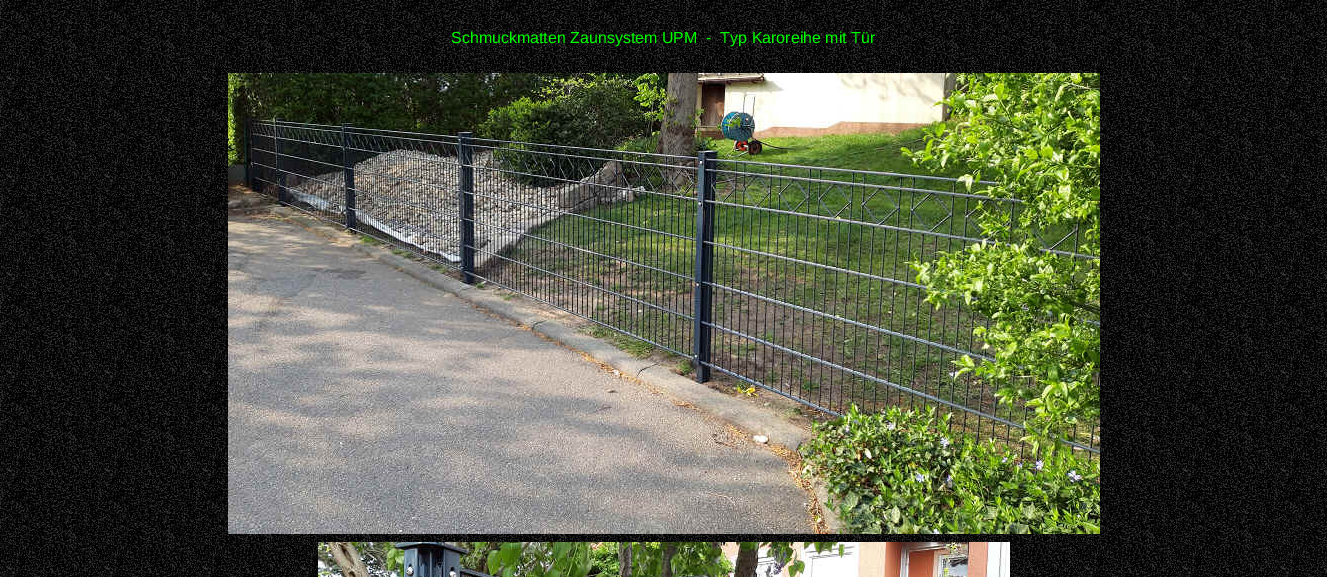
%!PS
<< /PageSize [1327 577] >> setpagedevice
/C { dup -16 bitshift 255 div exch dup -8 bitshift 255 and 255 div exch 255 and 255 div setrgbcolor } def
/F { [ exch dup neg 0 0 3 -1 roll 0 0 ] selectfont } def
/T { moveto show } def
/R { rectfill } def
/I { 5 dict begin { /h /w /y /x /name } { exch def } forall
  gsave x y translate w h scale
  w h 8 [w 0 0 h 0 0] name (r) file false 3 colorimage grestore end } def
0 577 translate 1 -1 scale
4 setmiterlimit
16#FFFFFF C
0 0 1327 577 R
(1.rgb) 0 0 1327 577 I
/LiberationSans-Regular 16 F
16#00FF00 C
(Schmuckmatten Zaunsystem UPM  -  Typ Karoreihe mit Tür) 451 43 T
(2.rgb) 228 73 872 461 I
(3.rgb) 318 542 692 35 I
showpage
